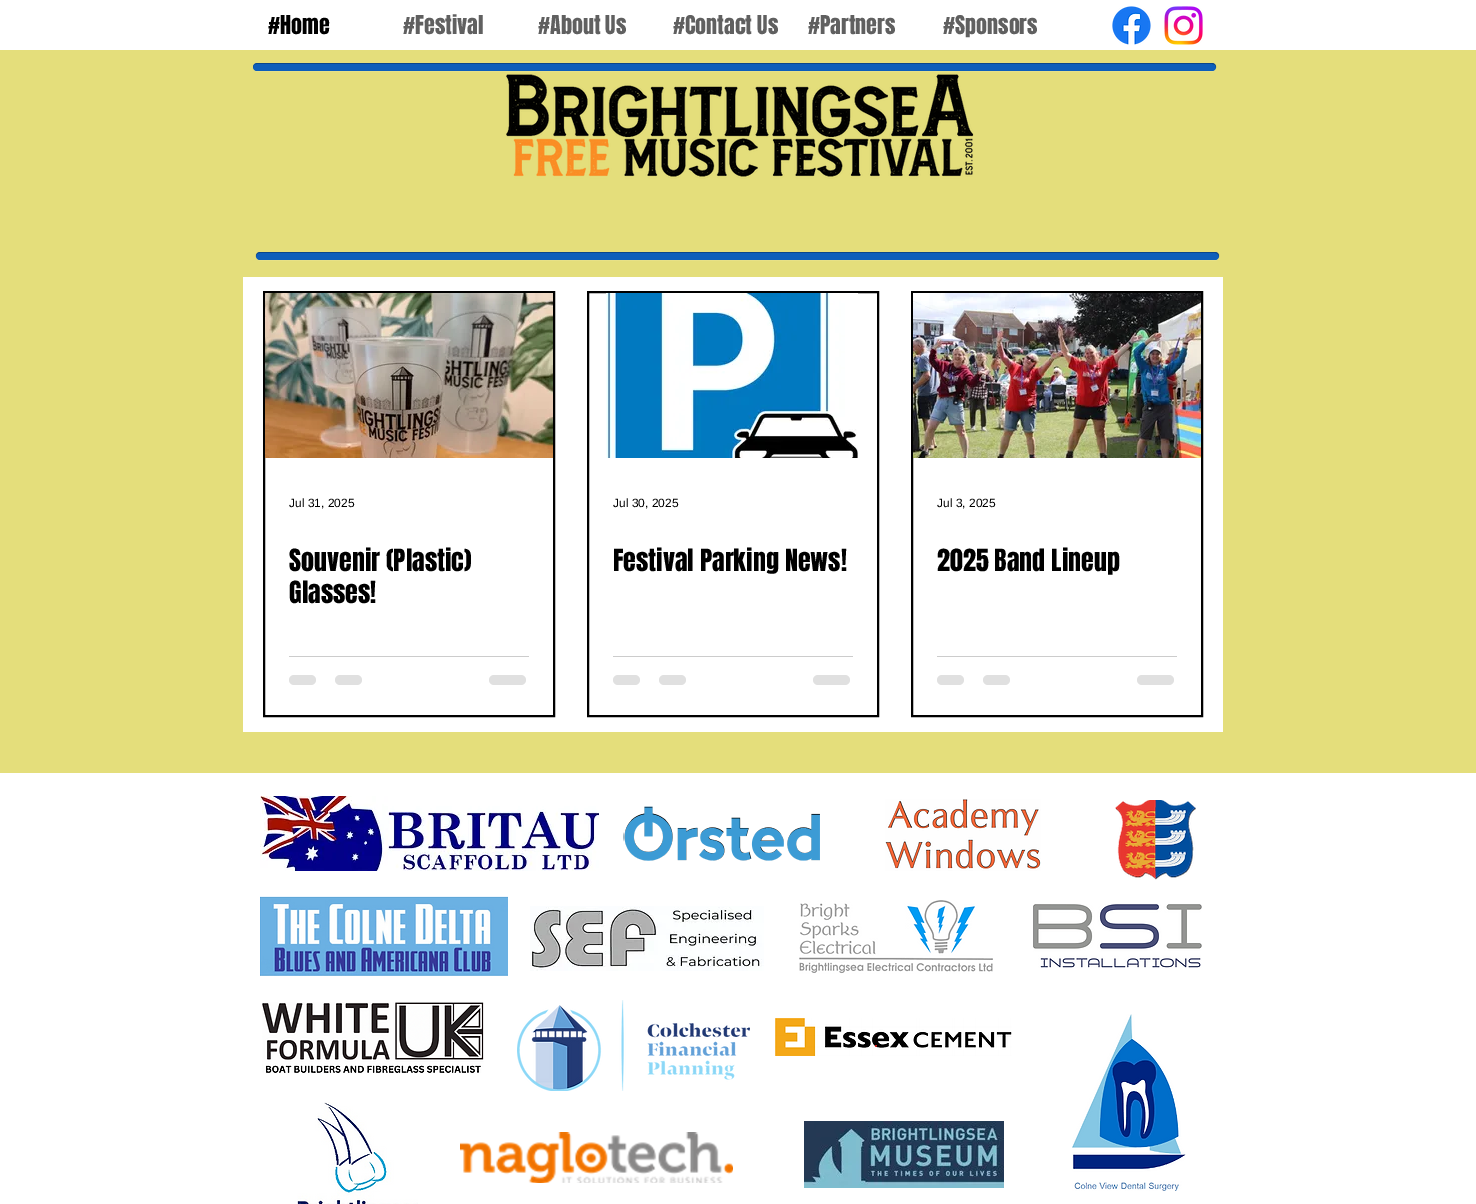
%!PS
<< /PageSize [1476 1204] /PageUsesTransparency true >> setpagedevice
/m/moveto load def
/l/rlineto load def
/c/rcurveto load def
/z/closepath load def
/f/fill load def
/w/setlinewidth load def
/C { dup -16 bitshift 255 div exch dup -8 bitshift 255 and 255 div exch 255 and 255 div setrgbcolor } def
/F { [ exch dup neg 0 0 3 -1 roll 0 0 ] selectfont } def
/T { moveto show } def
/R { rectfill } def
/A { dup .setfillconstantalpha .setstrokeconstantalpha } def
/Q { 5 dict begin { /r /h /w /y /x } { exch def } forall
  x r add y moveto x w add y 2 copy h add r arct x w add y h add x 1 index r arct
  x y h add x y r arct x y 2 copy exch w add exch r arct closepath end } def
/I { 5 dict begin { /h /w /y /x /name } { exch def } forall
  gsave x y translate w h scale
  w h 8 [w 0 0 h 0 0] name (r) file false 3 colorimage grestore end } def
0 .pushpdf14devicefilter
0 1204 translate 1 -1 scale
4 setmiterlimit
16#E4DE7B C
0 0 1476 1204 R
16#FFFFFF C
0 0 1476 50 R
/Anton-Regular 22 F
16#000000 C
(#Home) 268 34 T
16#606060 C
(#Festival) 403 34 T
(#About Us) 538 34 T
(#Contact Us) 673 34 T
(#Partners) 808 34 T
(#Sponsors) 943 34 T
(1.rgb) 1112 6 39 39 I
(2.rgb) 1164 6 39 39 I
16#E7E188 C
253 67 m 0 3 2 5 4 5 c 955 0 l 2 0 4 -2 4 -5 c 0 2 -2 4 -4 4 c -955 0 l -2 0 -4 -2 -4 -4 c z f
16#0D5EBA C
253 63 963 8 4 Q f
0.25 A
16#000000 C
257 64 m 955 0 l 3 1 l 1 3 l 1 -2 -1 -4 -3 -5 c -956 0 l -2 1 l -1 1 l -1 1 -1 2 -1 3 c 0 -2 1 -4 4 -4 c z f
1 A
(3.rgb) 506 73 468 106 I
16#E7E188 C
256 256 m 0 3 2 5 4 5 c 955 0 l 2 0 4 -2 4 -5 c 0 2 -2 4 -4 4 c -955 0 l -2 0 -4 -2 -4 -4 c z f
16#0D5EBA C
256 252 963 8 4 Q f
0.25 A
16#000000 C
260 253 m 955 0 l 2 0 4 2 4 4 c 1 -2 -1 -5 -4 -5 c -955 0 l -3 0 -5 3 -4 5 c 0 -2 1 -4 4 -4 c z f
1 A
16#FFFFFF C
243 277 980 455 R
16#000000 C
2 w
264 292 290 424 rectstroke
(4.rgb) 265 293 288 165 I
/LiberationSans-Regular 12 F
(Jul 31, 2025) 289 507 T
/Anton-Regular 26 F
(Souvenir \(Plastic\)) 289 571 T
(Glasses!) 289 603 T
16#CCCCCC C
289 656 240 1 R
16#E0E0E0 C
289 675 27 10 5 Q f
335 675 27 10 5 Q f
489 675 37 10 5 Q f
16#000000 C
588 292 290 424 rectstroke
(5.rgb) 606 293 252 165 I
/LiberationSans-Regular 12 F
(Jul 30, 2025) 613 507 T
/Anton-Regular 26 F
(Festival Parking News!) 613 571 T
16#CCCCCC C
613 656 240 1 R
16#E0E0E0 C
613 675 27 10 5 Q f
659 675 27 10 5 Q f
813 675 37 10 5 Q f
16#000000 C
912 292 290 424 rectstroke
(6.rgb) 913 293 288 165 I
/LiberationSans-Regular 12 F
(Jul 3, 2025) 937 507 T
/Anton-Regular 26 F
(2025 Band Lineup) 937 571 T
16#CCCCCC C
937 656 240 1 R
16#E0E0E0 C
937 675 27 10 5 Q f
983 675 27 10 5 Q f
1137 675 37 10 5 Q f
16#FFFFFF C
0 773 1476 431 R
(7.rgb) 260 796 339 75 I
(8.rgb) 623 806 197 55 I
(9.rgb) 885 799 156 72 I
(10.rgb) 1115 800 81 80 I
(11.rgb) 260 896 248 80 I
(12.rgb) 530 906 234 65 I
(13.rgb) 799 900 194 74 I
(14.rgb) 1033 904 169 64 I
(15.rgb) 262 1002 222 71 I
(16.rgb) 517 1000 233 91 I
(17.rgb) 775 1018 237 38 I
(18.rgb) 1072 1014 114 177 I
(19.rgb) 297 1102 121 102 I
(20.rgb) 460 1132 273 51 I
(21.rgb) 804 1121 200 67 I
.poppdf14devicefilter showpage
